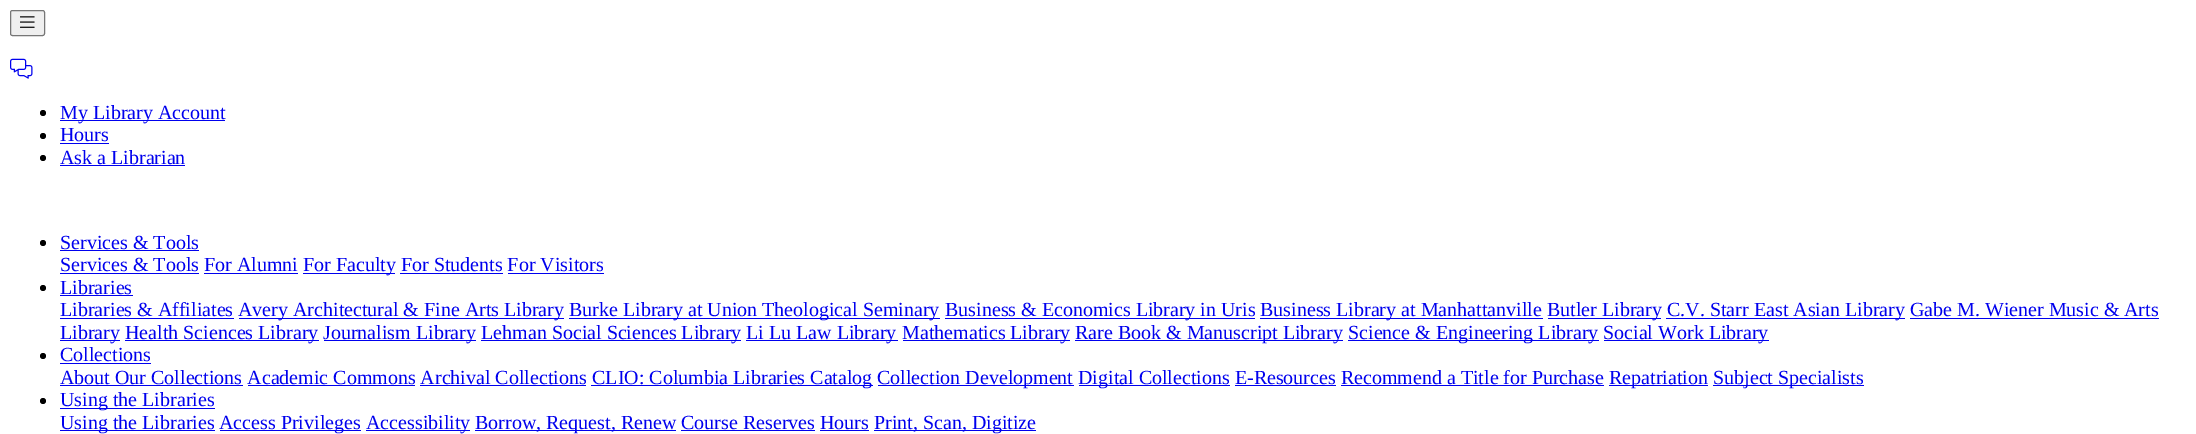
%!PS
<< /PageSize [2196 434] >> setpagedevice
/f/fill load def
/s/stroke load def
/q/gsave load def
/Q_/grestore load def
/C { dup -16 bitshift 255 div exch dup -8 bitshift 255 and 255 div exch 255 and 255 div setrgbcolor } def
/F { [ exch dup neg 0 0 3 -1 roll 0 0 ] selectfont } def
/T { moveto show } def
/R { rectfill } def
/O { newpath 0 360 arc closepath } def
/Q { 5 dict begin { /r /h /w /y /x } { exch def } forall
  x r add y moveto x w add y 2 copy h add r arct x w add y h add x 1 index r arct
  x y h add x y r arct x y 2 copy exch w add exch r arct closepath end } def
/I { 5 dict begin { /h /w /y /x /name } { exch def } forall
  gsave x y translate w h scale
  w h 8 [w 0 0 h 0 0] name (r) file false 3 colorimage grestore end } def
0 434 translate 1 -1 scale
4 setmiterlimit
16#FFFFFF C
0 0 2196 434 R
16#EFEFEF C
10.5 10.5 34 25 2 Q q f Q_
16#767676 C
s
(1.rgb) 20 16 15 12 I
(2.rgb) 10 58 23 21 I
16#000000 C
43 113 3 O f
16#0000EE C
60 120 165 1 R
/LiberationSerif-Regular 20 F
(My Library Account) 60 119 T
16#000000 C
43 136 3 O f
16#0000EE C
(Hours) 60 141 T
60 143 49 1 R
16#000000 C
43 158 3 O f
16#0000EE C
(Ask a Librarian) 60 164 T
60 165 125 1 R
16#000000 C
43 243 3 O f
16#0000EE C
(Services & Tools) 60 249 T
60 250 139 1 R
(Services & Tools For Alumni) 60 271 T
60 273 139 1 R
303 273 92 1 R
(For Faculty For Students For Visitors) 303 271 T
204 273 94 1 R
400 273 103 1 R
508 273 96 1 R
16#000000 C
43 288 3 O f
16#0000EE C
(Libraries) 60 294 T
60 295 73 1 R
(Libraries & Affiliates) 60 316 T
60 318 174 1 R
239 318 325 1 R
(Avery Architectural & Fine Arts Library) 238 316 T
569 318 371 1 R
(Burke Library at Union Theological Seminary) 569 316 T
945 318 310 1 R
(Business & Economics Library in Uris) 945 316 T
1260 318 283 1 R
(Business Library at Manhattanville) 1260 316 T
1548 318 113 1 R
(Butler Library) 1547 316 T
1666 318 239 1 R
(C.V. Starr East Asian Library Gabe M. Wiener Music & Arts) 1667 316 T
60 340 60 1 R
(Library) 60 339 T
1910 318 249 1 R
125 340 194 1 R
(Health Sciences Library) 125 339 T
324 340 152 1 R
(Journalism Library) 323 339 T
481 340 260 1 R
(Lehman Social Sciences Library) 481 339 T
746 340 152 1 R
(Li Lu Law Library) 746 339 T
903 340 167 1 R
(Mathematics Library) 902 339 T
1075 340 268 1 R
(Rare Book & Manuscript Library) 1075 339 T
1348 340 251 1 R
(Science & Engineering Library) 1348 339 T
1604 340 165 1 R
(Social Work Library) 1603 339 T
16#000000 C
43 356 3 O f
16#0000EE C
(Collections) 60 361 T
60 363 91 1 R
(About Our Collections Academic Commons Archival Collections) 60 384 T
60 385 183 1 R
591 385 282 1 R
(CLIO: Columbia Libraries Catalog) 592 384 T
878 385 196 1 R
(Collection Development) 877 384 T
1079 385 151 1 R
(Digital Collections E-Resources Recommend a Title for Purchase) 1078 384 T
1609 385 99 1 R
(Repatriation) 1609 384 T
1713 385 151 1 R
(Subject Specialists) 1713 384 T
248 385 167 1 R
420 385 166 1 R
1235 385 101 1 R
1341 385 263 1 R
16#000000 C
43 401 3 O f
16#0000EE C
60 408 155 1 R
(Using the Libraries) 60 406 T
60 430 155 1 R
(Using the Libraries) 60 429 T
220 430 141 1 R
(Access Privileges) 219 429 T
366 430 104 1 R
(Accessibility) 366 429 T
475 430 201 1 R
(Borrow, Request, Renew Course Reserves Hours) 475 429 T
874 430 162 1 R
(Print, Scan, Digitize) 874 429 T
681 430 134 1 R
820 430 49 1 R
showpage
